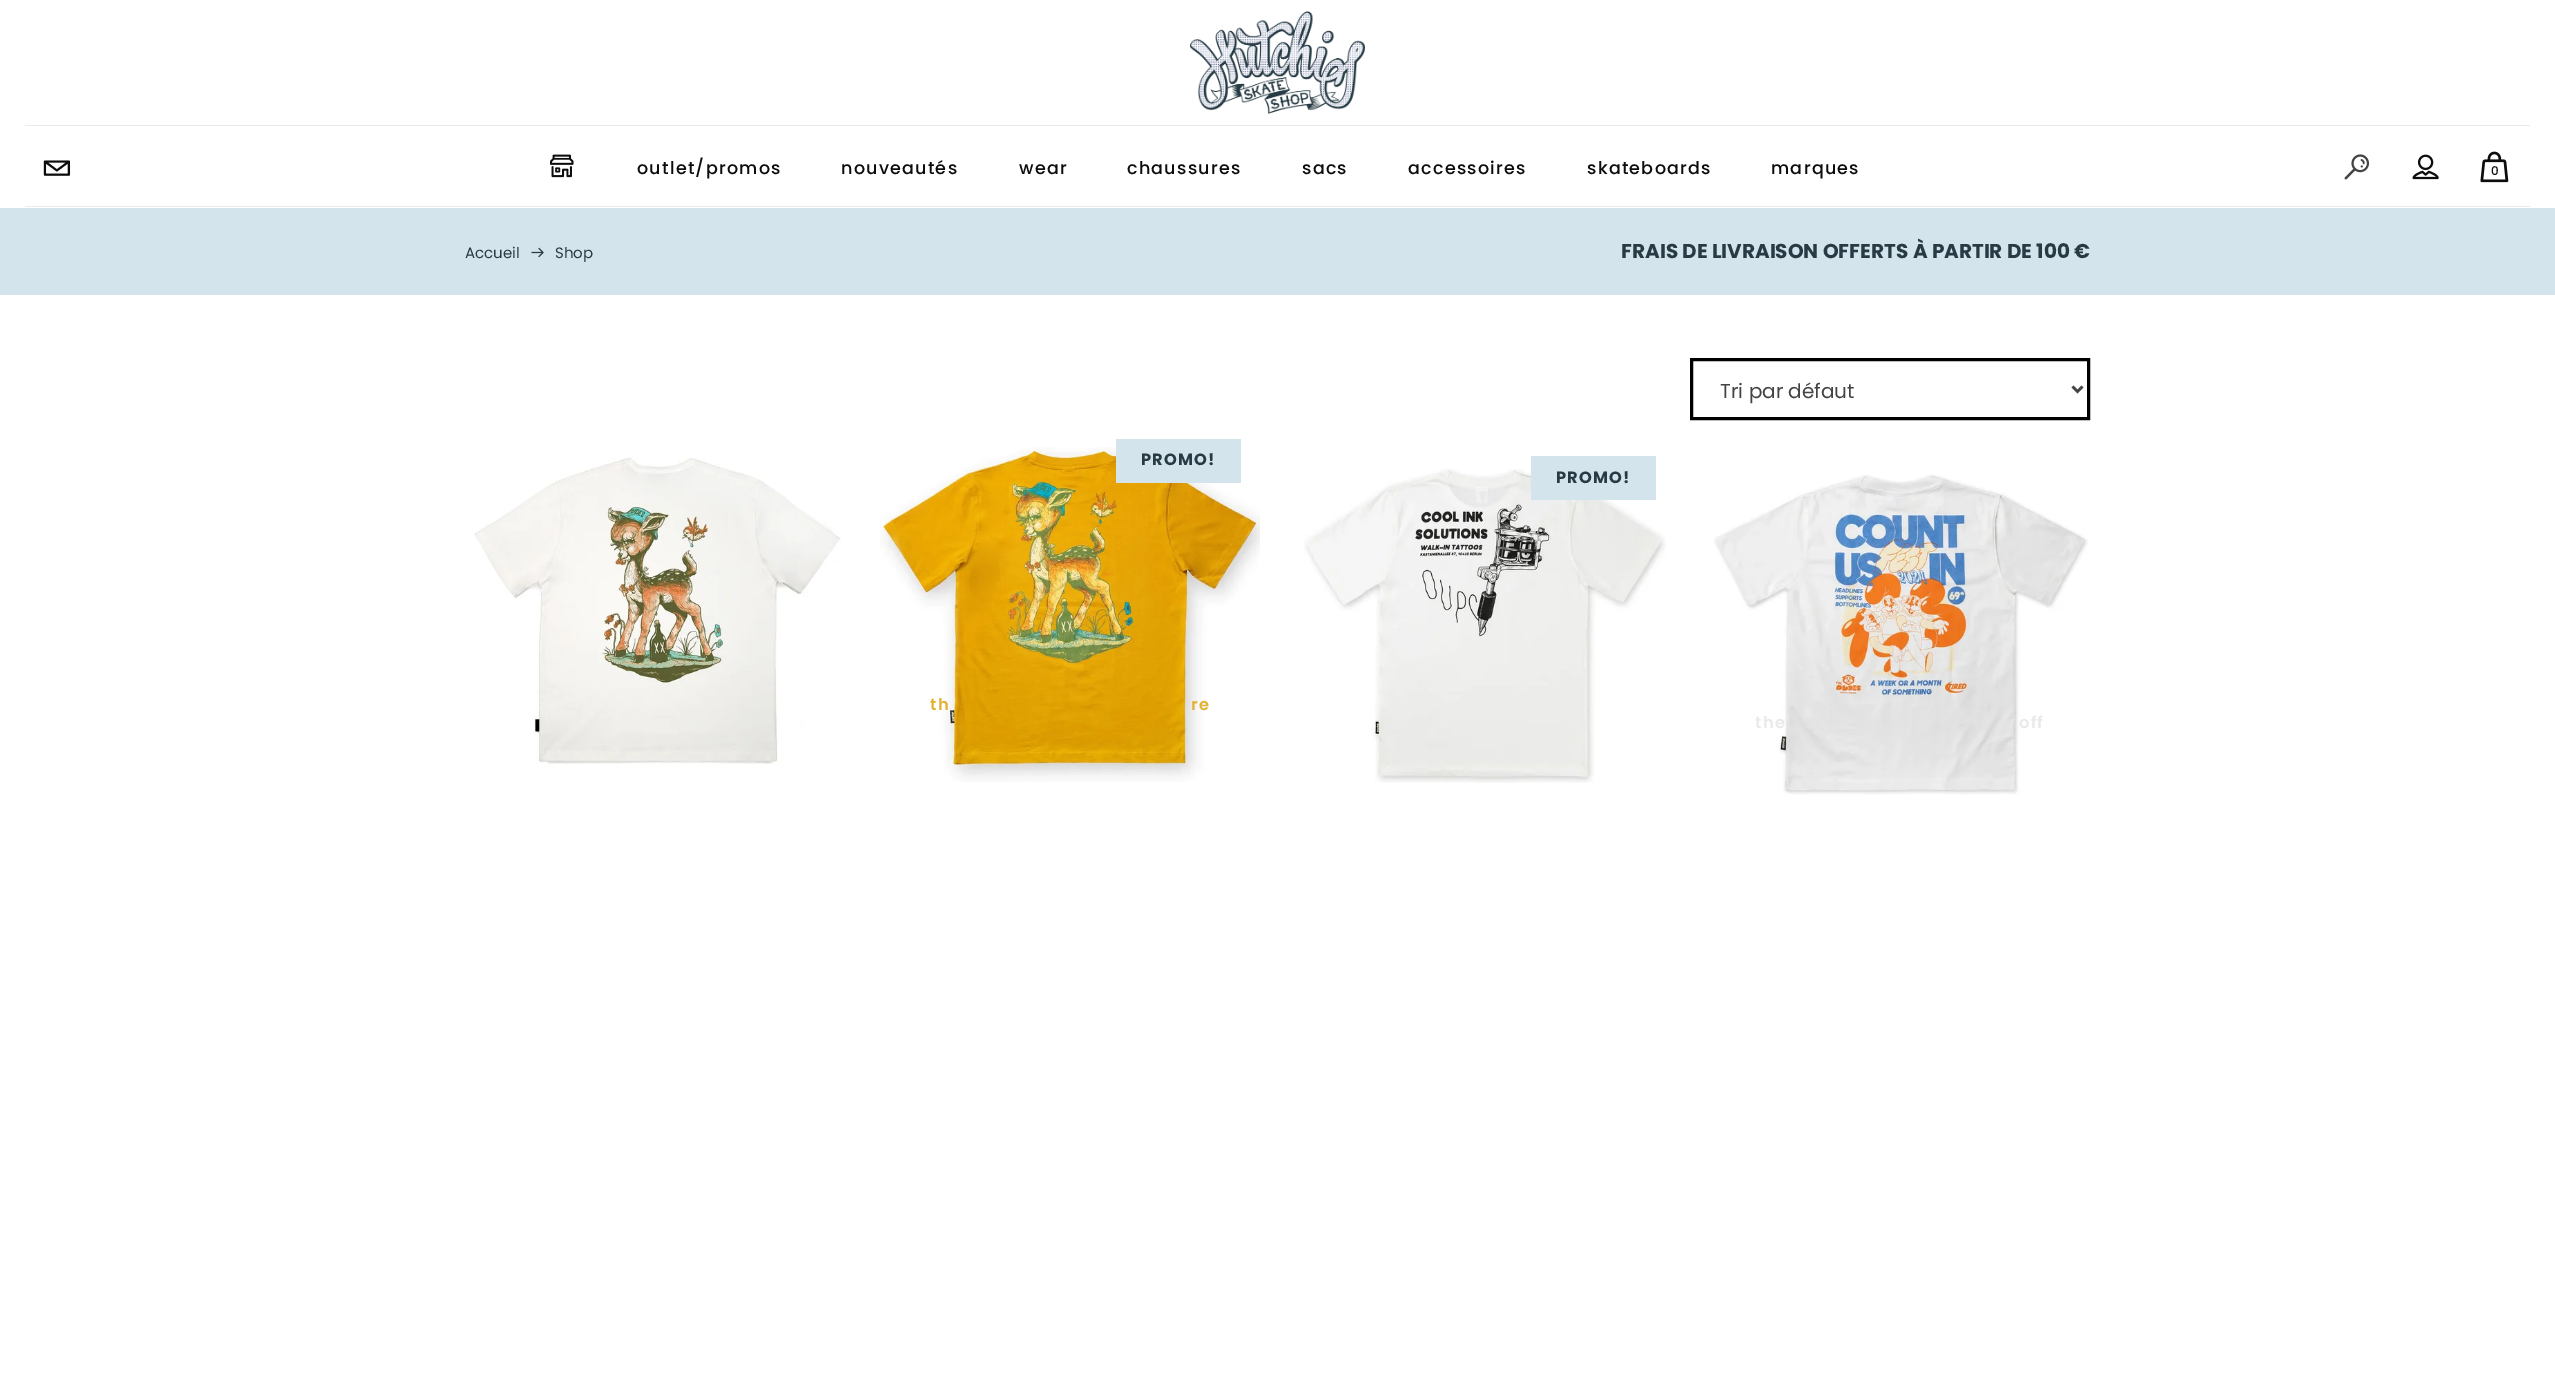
%!PS
<< /PageSize [2555 1387] >> setpagedevice
/m/moveto load def
/l/rlineto load def
/s/stroke load def
/w/setlinewidth load def
/C { dup -16 bitshift 255 div exch dup -8 bitshift 255 and 255 div exch 255 and 255 div setrgbcolor } def
/F { [ exch dup neg 0 0 3 -1 roll 0 0 ] selectfont } def
/T { moveto show } def
/R { rectfill } def
/I { 5 dict begin { /h /w /y /x /name } { exch def } forall
  gsave x y translate w h scale
  w h 8 [w 0 0 h 0 0] name (r) file false 3 colorimage grestore end } def
0 1387 translate 1 -1 scale
4 setmiterlimit
16#FFFFFF C
0 0 2555 1387 R
(1.rgb) 1190 11 175 103 I
16#EBEBEB C
25 125 2505 1 R
25 206 2505 1 R
(2.rgb) 43 160 28 16 I
(3.rgb) 550 154 24 24 I
/Poppins-Medium 17.5 F
16#0D0D0D C
637 174 m 1.25 0 (outlet/promos) ashow
841 174 m 1.25 0 (nouveautés) ashow
1019 174 m 1.25 0 (wear) ashow
1127 174 m 1.25 0 (chaussures) ashow
1302 174 m 1.25 0 (sacs) ashow
1408 174 m 1.25 0 (accessoires) ashow
1587 174 m 1.25 0 (skateboards) ashow
1771 174 m 1.25 0 (marques) ashow
(4.rgb) 2344 154 26 26 I
(5.rgb) 2412 154 27 26 I
(6.rgb) 2480 151 29 32 I
/Poppins-Medium 12 F
2491 175 m 1.25 0 (0) ashow
16#D4E4EC C
0 208 2555 87 R
/Poppins-Regular 15 F
16#283B44 C
(Accueil) 465 258 T
(7.rgb) 531 247 13 11 I
(Shop) 555 258 T
/Poppins-Bold 20 F
(FRAIS DE LIVRAISON OFFERTS À PARTIR DE 100 €) 1621 258 T
16#000000 C
3 w
1691.5 359.5 397 59 rectstroke
16#444444 C
2.5 w
2072.5 386.5 m 5 5 l 5 -5 l s
/Poppins-Regular 20 F
(Tri par défaut) 1720 398 T
(8.rgb) 474 457 367 307 I
(9.rgb) 880 447 380 335 I
16#D4E4EC C
1116 439 125 44 R
/Poppins-Bold 16.25 F
16#283B44 C
1141 465 m 1.25 0 (PROMO!) ashow
/Poppins-SemiBold 16.25 F
16#E3B030 C
930 710 m 1.25 0 (th) ashow
1191 710 m 1.25 0 (re) ashow
(10.rgb) 1304 468 362 315 I
16#D4E4EC C
1531 456 125 44 R
/Poppins-Bold 16.25 F
16#283B44 C
1556 483 m 1.25 0 (PROMO!) ashow
(11.rgb) 1714 474 374 321 I
/Poppins-SemiBold 16.25 F
16#E8E9E8 C
1755 728 m 1.25 0 (the) ashow
2019 728 m 1.25 0 (off) ashow
showpage
